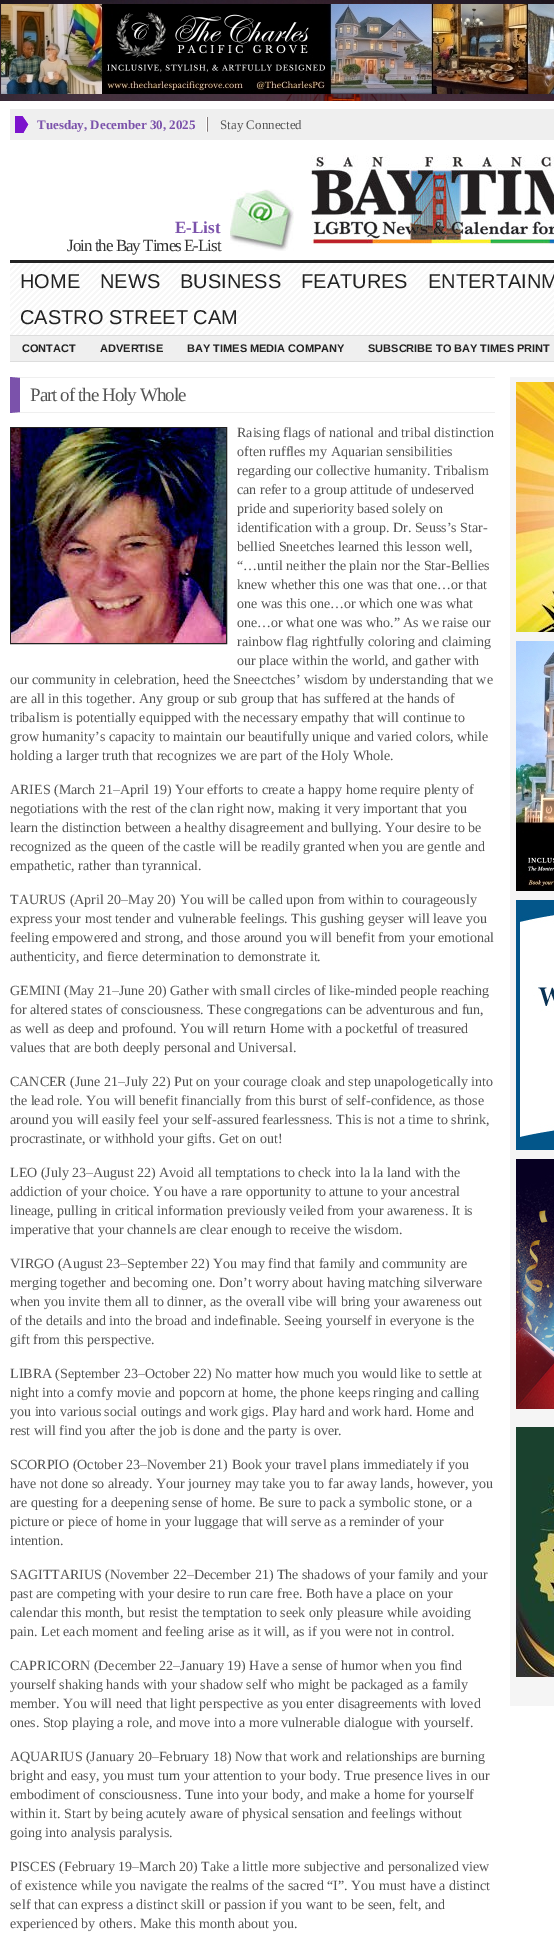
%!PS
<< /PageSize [554 1933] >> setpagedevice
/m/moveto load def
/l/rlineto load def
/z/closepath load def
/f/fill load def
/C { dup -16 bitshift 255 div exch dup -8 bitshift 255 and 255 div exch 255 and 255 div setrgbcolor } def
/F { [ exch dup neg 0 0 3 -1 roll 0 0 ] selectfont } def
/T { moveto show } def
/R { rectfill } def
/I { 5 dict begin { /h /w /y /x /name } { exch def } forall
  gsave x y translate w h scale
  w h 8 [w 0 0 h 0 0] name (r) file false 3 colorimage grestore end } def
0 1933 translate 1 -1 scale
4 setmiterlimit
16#FFFFFF C
0 0 554 1933 R
(1.rgb) 0 0 554 101 I
(2.rgb) 1 4 553 90 I
16#EFEFEF C
10 109 544 31 R
(3.rgb) 15 116 14 17 I
(4.rgb) 206 117 2 15 I
/LiberationSerif-Bold 13 F
16#7B52AB C
(Tuesday, December 30, 2025) 37 129 T
/LiberationSerif-Regular 13 F
16#555555 C
(Stay Connected) 220 129 T
16#222222 C
10 260 544 3 R
/LiberationSerif-Bold 17 F
16#7B52AB C
(E-List) 175 233 T
/LiberationSerif-Regular 17 F
16#333333 C
67 251 m -1 0 (Join the Bay Times E-List) ashow
(5.rgb) 230 189 64 62 I
(6.rgb) 310 155 244 90 I
(7.rgb) 10 263 544 72 I
16#DDDDDD C
10 335 544 1 R
/LiberationSans-Regular 20 F
16#222222 C
(HOME) 20 288 T
(NEWS) 100 288 T
(BUSINESS) 180 288 T
(FEATURES) 301 288 T
(ENTERTAINM) 428 288 T
(CASTRO STREET CAM) 20 324 T
16#EFEFEF C
10 336 544 25 R
16#DDDDDD C
10 361 544 1 R
/LiberationSans-Bold 11 F
16#222222 C
(CONTACT) 22 352 T
(ADVERTISE) 100 352 T
(BAY TIMES MEDIA COMPANY) 187 352 T
(SUBSCRIBE TO BAY TIMES PRINT) 368 352 T
16#EFEFEF C
10 377 m 485 0 l 0 1 l -475 0 l z f
495 413 m -485 0 l 10 -1 l 475 0 l z f
16#7B52AB C
10 413 m 0 -36 l 10 1 l 0 34 l z f
/LiberationSerif-Regular 19 F
16#555555 C
30 401 m -1 0 (Part of the Holy Whole) ashow
16#222222 C
10.5 427.5 216 216 rectstroke
(8.rgb) 11 428 215 215 I
/LiberationSerif-Regular 14 F
16#555555 C
(Raising flags of national and tribal distinction) 237 437 T
(often ruffles my Aquarian sensibilities) 237 456 T
(regarding our collective humanity. Tribalism) 237 475 T
(can refer to a group attitude of undeserved) 237 494 T
(pride and superiority based solely on) 237 513 T
(identification with a group. Dr. Seuss’s Star-) 237 532 T
(bellied Sneetches learned this lesson well,) 237 551 T
(“…until neither the plain nor the Star-Bellies) 237 570 T
(knew whether this one was that one…or that) 237 589 T
(one was this one…or which one was what) 237 608 T
(one…or what one was who.” As we raise our) 237 627 T
(rainbow flag rightfully coloring and claiming) 237 646 T
(our place within the world, and gather with) 237 665 T
(our community in celebration, heed the Sneectches’ wisdom by understanding that we) 10 684 T
(are all in this together. Any group or sub group that has suffered at the hands of) 10 703 T
(tribalism is potentially equipped with the necessary empathy that will continue to) 10 722 T
(grow humanity’s capacity to maintain our beautifully unique and varied colors, while) 10 741 T
(holding a larger truth that recognizes we are part of the Holy Whole.) 10 760 T
(ARIES \(March 21–April 19\) Your efforts to create a happy home require plenty of) 10 794 T
(negotiations with the rest of the clan right now, making it very important that you) 10 813 T
(learn the distinction between a healthy disagreement and bullying. Your desire to be) 10 832 T
(recognized as the queen of the castle will be readily granted when you are gentle and) 10 851 T
(empathetic, rather than tyrannical.) 10 870 T
(TAURUS \(April 20–May 20\) You will be called upon from within to courageously) 10 904 T
(express your most tender and vulnerable feelings. This gushing geyser will leave you) 10 923 T
(feeling empowered and strong, and those around you will benefit from your emotional) 10 942 T
(authenticity, and fierce determination to demonstrate it.) 10 961 T
(GEMINI \(May 21–June 20\) Gather with small circles of like-minded people reaching) 10 995 T
(for altered states of consciousness. These congregations can be adventurous and fun,) 10 1014 T
(as well as deep and profound. You will return Home with a pocketful of treasured) 10 1033 T
(values that are both deeply personal and Universal.) 10 1052 T
(CANCER \(June 21–July 22\) Put on your courage cloak and step unapologetically into) 10 1086 T
(the lead role. You will benefit financially from this burst of self-confidence, as those) 10 1105 T
(around you will easily feel your self-assured fearlessness. This is not a time to shrink,) 10 1124 T
(procrastinate, or withhold your gifts. Get on out!) 10 1143 T
(LEO \(July 23–August 22\) Avoid all temptations to check into la la land with the) 10 1177 T
(addiction of your choice. You have a rare opportunity to attune to your ancestral) 10 1196 T
(lineage, pulling in critical information previously veiled from your awareness. It is) 10 1215 T
(imperative that your channels are clear enough to receive the wisdom.) 10 1234 T
(VIRGO \(August 23–September 22\) You may find that family and community are) 10 1268 T
(merging together and becoming one. Don’t worry about having matching silverware) 10 1287 T
(when you invite them all to dinner, as the overall vibe will bring your awareness out) 10 1306 T
(of the details and into the broad and indefinable. Seeing yourself in everyone is the) 10 1325 T
(gift from this perspective.) 10 1344 T
(LIBRA \(September 23–October 22\) No matter how much you would like to settle at) 10 1378 T
(night into a comfy movie and popcorn at home, the phone keeps ringing and calling) 10 1397 T
(you into various social outings and work gigs. Play hard and work hard. Home and) 10 1416 T
(rest will find you after the job is done and the party is over.) 10 1435 T
(SCORPIO \(October 23–November 21\) Book your travel plans immediately if you) 10 1469 T
(have not done so already. Your journey may take you to far away lands, however, you) 10 1488 T
(are questing for a deepening sense of home. Be sure to pack a symbolic stone, or a) 10 1507 T
(picture or piece of home in your luggage that will serve as a reminder of your) 10 1526 T
(intention.) 10 1545 T
(SAGITTARIUS \(November 22–December 21\) The shadows of your family and your) 10 1579 T
(past are competing with your desire to run care free. Both have a place on your) 10 1598 T
(calendar this month, but resist the temptation to seek only pleasure while avoiding) 10 1617 T
(pain. Let each moment and feeling arise as it will, as if you were not in control.) 10 1636 T
(CAPRICORN \(December 22–January 19\) Have a sense of humor when you find) 10 1670 T
(yourself shaking hands with your shadow self who might be packaged as a family) 10 1689 T
(member. You will need that light perspective as you enter disagreements with loved) 10 1708 T
(ones. Stop playing a role, and move into a more vulnerable dialogue with yourself.) 10 1727 T
(AQUARIUS \(January 20–February 18\) Now that work and relationships are burning) 10 1761 T
(bright and easy, you must turn your attention to your body. True presence lives in our) 10 1780 T
(embodiment of consciousness. Tune into your body, and make a home for yourself) 10 1799 T
(within it. Start by being acutely aware of physical sensation and feelings without) 10 1818 T
(going into analysis paralysis.) 10 1837 T
(PISCES \(February 19–March 20\) Take a little more subjective and personalized view) 10 1871 T
(of existence while you navigate the realms of the sacred “I”. You must have a distinct) 10 1890 T
(self that can express a distinct skill or passion if you want to be seen, felt, and) 10 1909 T
(experienced by others. Make this month about you.) 10 1928 T
16#F5F5F5 C
510 377 44 1329 R
(9.rgb) 516 382 38 250 I
(10.rgb) 516 641 38 250 I
(11.rgb) 516 900 38 250 I
(12.rgb) 516 1159 38 250 I
(13.rgb) 516 1427 38 250 I
showpage
